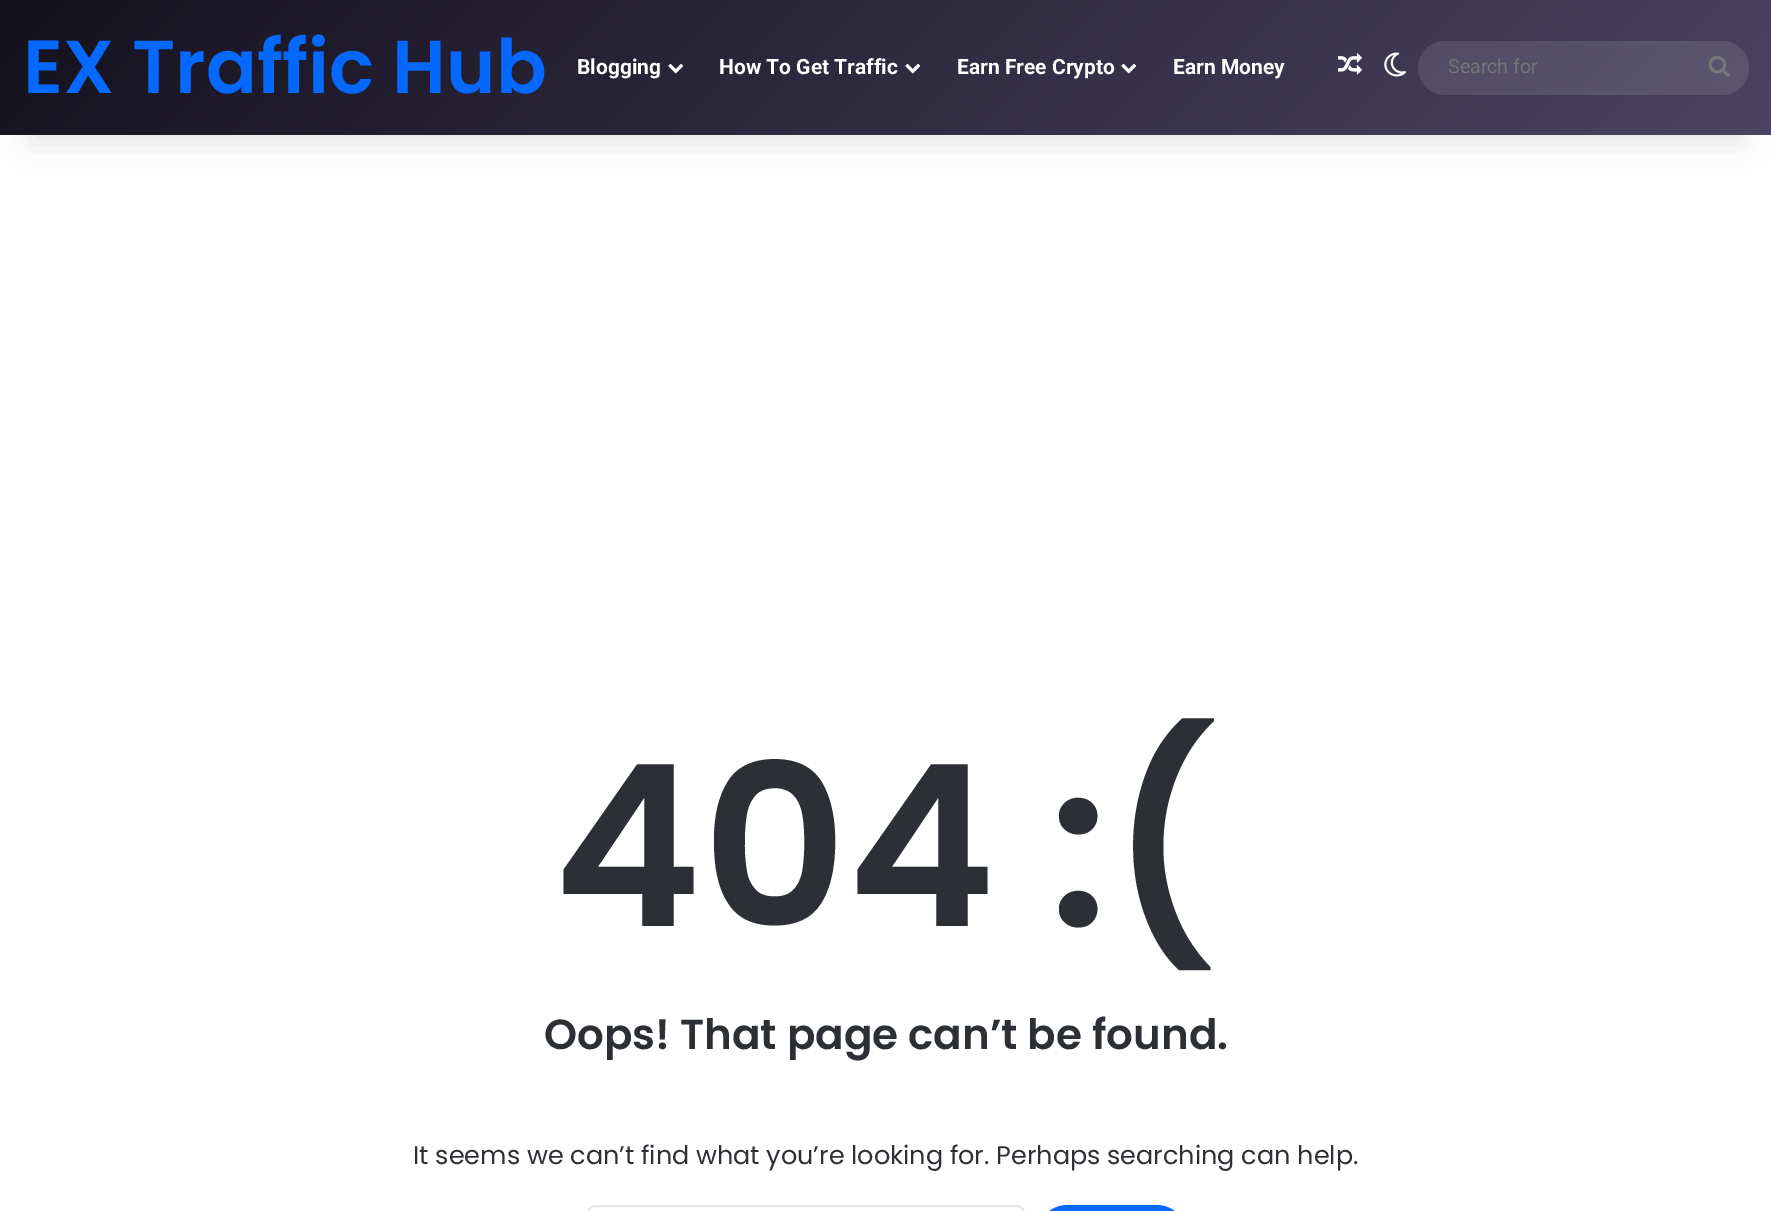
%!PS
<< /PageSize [1771 1211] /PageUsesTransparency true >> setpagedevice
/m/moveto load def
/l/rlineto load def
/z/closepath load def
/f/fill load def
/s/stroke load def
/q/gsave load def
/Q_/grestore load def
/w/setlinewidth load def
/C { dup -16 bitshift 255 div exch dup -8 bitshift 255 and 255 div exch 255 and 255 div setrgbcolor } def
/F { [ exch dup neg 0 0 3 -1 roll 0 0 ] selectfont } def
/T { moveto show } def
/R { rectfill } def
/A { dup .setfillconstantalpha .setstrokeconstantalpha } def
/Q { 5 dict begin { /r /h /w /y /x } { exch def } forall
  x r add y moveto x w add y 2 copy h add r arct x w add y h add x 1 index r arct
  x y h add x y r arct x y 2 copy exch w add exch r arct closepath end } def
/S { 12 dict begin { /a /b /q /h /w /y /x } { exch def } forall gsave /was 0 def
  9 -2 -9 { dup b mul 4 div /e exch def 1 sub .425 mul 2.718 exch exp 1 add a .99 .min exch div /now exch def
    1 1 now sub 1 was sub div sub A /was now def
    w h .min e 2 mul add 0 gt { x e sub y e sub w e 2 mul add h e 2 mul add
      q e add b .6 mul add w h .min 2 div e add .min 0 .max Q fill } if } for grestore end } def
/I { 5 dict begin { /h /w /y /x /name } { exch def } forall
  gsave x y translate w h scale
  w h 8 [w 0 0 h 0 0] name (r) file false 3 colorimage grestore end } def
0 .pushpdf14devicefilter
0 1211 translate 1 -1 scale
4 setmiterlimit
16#FFFFFF C
0 0 1771 1211 R
16#000000 C
30 68 1712 75 0 15 .1 S
q 0 0 m 1771 0 l 0 135 l -1771 0 l z clip newpath
<< /ShadingType 2 /ColorSpace /DeviceRGB /Coords [409 -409 1362 544] /Extend [true true] /Function << /FunctionType 2 /Domain [0 1] /C0 [.078 .067 .118] /C1 [.294 .267 .384] /N 1 >> >> shfill Q_
/Poppins-SemiBold 75 F
16#0669FF C
(EX Traffic Hub) 23 93 T
/Roboto-Bold 21 F
16#FFFFFF C
(Blogging) 577 74 T
(1.rgb) 668 63 16 11 I
(How To Get Traffic) 719 74 T
(2.rgb) 905 63 16 11 I
(Earn Free Crypto) 957 74 T
(3.rgb) 1121 63 16 11 I
(Earn Money) 1173 74 T
(4.rgb) 1338 53 24 22 I
(5.rgb) 1384 52 22 25 I
0.1 A
1418 41 331 54 27 Q f
/Roboto-Regular 19.5 F
1 A
16#757575 C
(Search for) 1448 73 T
(6.rgb) 1708 55 22 22 I
/Poppins-SemiBold 225 F
16#2C2F34 C
(404 :\() 553 926 T
/Poppins-SemiBold 42 F
(Oops! That page can’t be found.) 544 1049 T
/Poppins-Regular 25.5 F
(It seems we can’t find what you’re looking for. Perhaps searching can help.) 413 1164 T
16#E6E6E6 C
2 w
588 1206 436 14 7 Q s
16#0669FF C
1037 1205 150 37 30.5 Q f
.poppdf14devicefilter showpage
